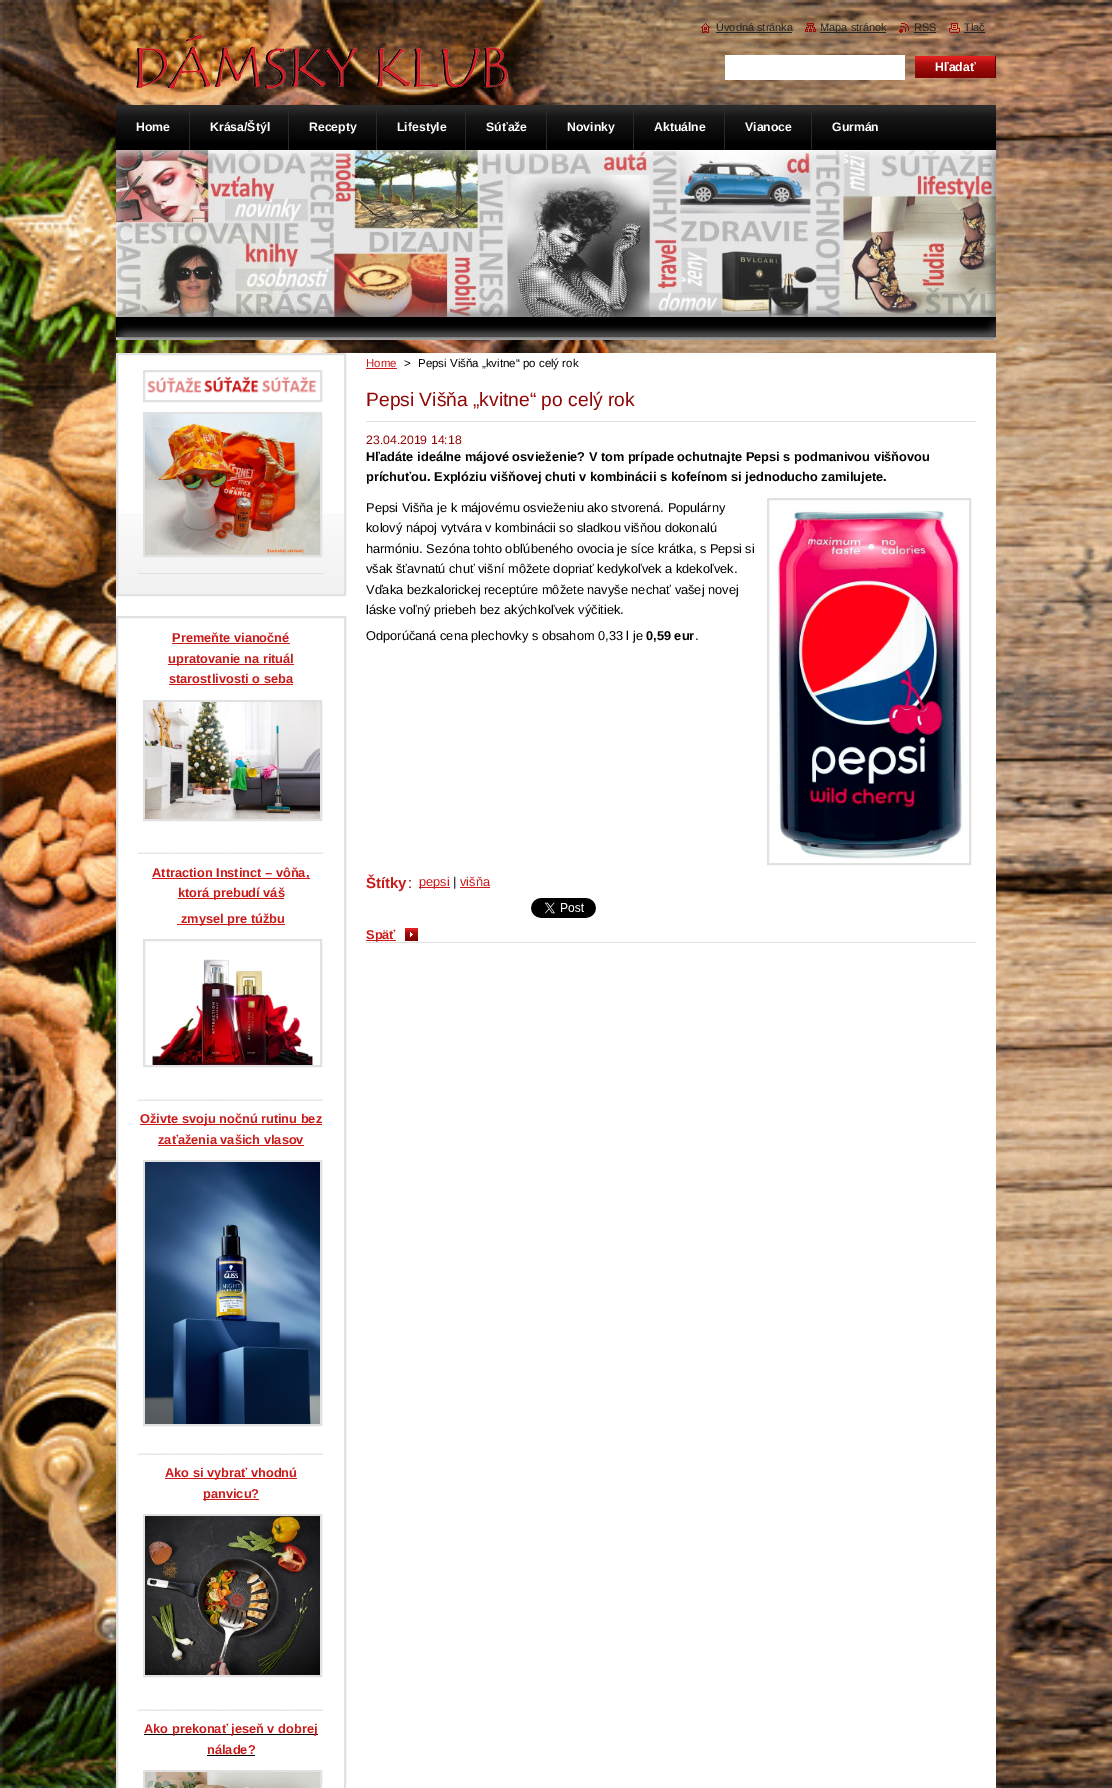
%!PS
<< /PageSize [1112 1788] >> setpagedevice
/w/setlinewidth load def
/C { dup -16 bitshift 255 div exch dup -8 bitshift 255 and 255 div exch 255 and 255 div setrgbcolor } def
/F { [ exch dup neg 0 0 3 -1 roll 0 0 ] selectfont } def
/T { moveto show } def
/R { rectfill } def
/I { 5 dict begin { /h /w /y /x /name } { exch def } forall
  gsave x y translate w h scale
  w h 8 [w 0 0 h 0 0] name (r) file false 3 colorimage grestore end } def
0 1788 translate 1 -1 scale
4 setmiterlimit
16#FFFFFF C
0 0 1112 1788 R
(1.rgb) 0 0 1112 1788 I
(2.rgb) 701 23 9 10 I
/LiberationSans-Regular 11 F
16#242424 C
(Úvodná stránka) 716 31 T
716 32 76 1 R
(3.rgb) 805 23 11 9 I
820 32 66 1 R
(Mapa stránok) 820 31 T
(4.rgb) 899 23 10 10 I
(RSS) 914 31 T
914 32 22 1 R
(5.rgb) 949 23 11 10 I
(Tlač) 964 31 T
964 32 21 1 R
(6.rgb) 136 34 372 55 I
16#FFFFFF C
725 55 180 25 R
16#E52020 C
915 56 80 1 R
(7.rgb) 915 57 80 21 I
16#610303 C
995 56 1 22 R
/LiberationSans-Bold 12.25 F
16#FFFFFF C
(Hľadať) 935 71 T
16#000000 C
116 141 880 9 R
(8.rgb) 116 105 880 36 I
16#2A2A2A C
189 110 1 40 R
16#FFFFFF C
(Home) 136 131 T
16#2A2A2A C
288 110 1 40 R
16#FFFFFF C
(Krása/Štýl) 210 131 T
16#2A2A2A C
376 110 1 40 R
16#FFFFFF C
(Recepty) 309 131 T
16#2A2A2A C
465 110 1 40 R
16#FFFFFF C
(Lifestyle) 397 131 T
16#2A2A2A C
546 110 1 40 R
16#FFFFFF C
(Súťaže) 486 131 T
16#2A2A2A C
633 110 1 40 R
16#FFFFFF C
(Novinky) 567 131 T
16#2A2A2A C
724 110 1 40 R
16#FFFFFF C
(Aktuálne) 654 131 T
16#2A2A2A C
811 110 1 40 R
16#FFFFFF C
(Vianoce) 745 131 T
(Gurmán) 832 131 T
(9.rgb) 116 150 880 190 I
116 353 880 1435 R
(10.rgb) 118 513 226 81 I
16#E1E1E1 C
2 w
117 354 228 241 rectstroke
138 573 186 1 R
144 371 177 30 rectstroke
(11.rgb) 147 376 170 17 I
144 413 177 143 rectstroke
(12.rgb) 145 414 175 141 I
117 617 228 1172 rectstroke
/LiberationSans-Bold 12.8 F
16#CA1919 C
(Premeňte vianočné) 172 642 T
172 643 118 1 R
168 664 126 1 R
(upratovanie na rituál) 168 663 T
(starostlivosti o seba) 169 683 T
169 684 124 1 R
16#E1E1E1 C
144 701 177 119 rectstroke
(13.rgb) 145 702 175 117 I
/LiberationSans-Regular 12.8 F
16#D3D3D3 C
(__________________________) 138 851 T
16#CA1919 C
152 878 158 1 R
/LiberationSans-Bold 12.8 F
(Attraction Instinct – vôňa,) 152 877 T
178 898 106 1 R
(ktorá prebudí váš) 178 897 T
177 924 108 1 R
(zmysel pre túžbu) 181 923 T
16#E1E1E1 C
144 940 177 126 rectstroke
(14.rgb) 152 959 161 106 I
/LiberationSans-Regular 12.8 F
16#D3D3D3 C
(__________________________) 138 1098 T
16#CA1919 C
140 1124 182 1 R
/LiberationSans-Bold 12.8 F
(Oživte svoju nočnú rutinu bez) 140 1123 T
(zaťaženia vašich vlasov) 158 1144 T
158 1145 146 1 R
16#E1E1E1 C
144 1161 177 264 rectstroke
(15.rgb) 145 1162 175 262 I
/LiberationSans-Regular 12.8 F
16#D3D3D3 C
(__________________________) 138 1452 T
16#CA1919 C
165 1478 132 1 R
/LiberationSans-Bold 12.8 F
(Ako si vybrať vhodnú) 165 1477 T
203 1499 56 1 R
(panvicu?) 203 1498 T
16#E1E1E1 C
144 1515 177 161 rectstroke
(16.rgb) 145 1516 175 159 I
/LiberationSans-Regular 12.8 F
16#D3D3D3 C
(__________________________) 138 1708 T
16#000000 C
144 1734 174 1 R
/LiberationSans-Bold 12.8 F
16#CA1919 C
(Ako prekonať jeseň v dobrej) 144 1733 T
(nálade?) 207 1754 T
16#000000 C
207 1755 48 1 R
16#E1E1E1 C
144 1771 177 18 rectstroke
(17.rgb) 145 1772 175 16 I
/LiberationSans-Regular 11.5 F
16#CA1919 C
(Home) 366 367 T
366 368 31 1 R
16#000000 C
(>) 404 367 T
(Pepsi Višňa „kvitne“ po celý rok) 418 367 T
16#E1E1E1 C
366 421 610 1 R
/LiberationSans-Regular 19.25 F
16#900707 C
(Pepsi Višňa „kvitne“ po celý rok) 366 406 T
16#E1E1E1 C
366 942 610 1 R
/LiberationSans-Regular 12.25 F
16#900707 C
(23.04.2019 14:18) 366 444 T
/LiberationSans-Bold 12.8 F
16#000000 C
(Hľadáte ideálne májové osvieženie? V tom prípade ochutnajte Pepsi s podmanivou višňovou) 366 461 T
(príchuťou. Explóziu višňovej chuti v kombinácii s kofeínom si jednoducho zamilujete.) 366 481 T
/LiberationSans-Regular 12.8 F
(Pepsi Višňa je k májovému osvieženiu ako stvorená. Populárny) 366 512 T
(kolový nápoj vytvára v kombinácii so sladkou višňou dokonalú) 366 532 T
(harmóniu. Sezóna tohto obľúbeného ovocia je síce krátka, s Pepsi si) 366 553 T
(však šťavnatú chuť višní môžete dopriať kedykoľvek a kdekoľvek.) 366 573 T
(Vďaka bezkalorickej receptúre môžete navyše nechať vašej novej) 366 594 T
(láske voľný priebeh bez akýchkoľvek výčitiek.) 366 614 T
16#E1E1E1 C
768 499 202 365 rectstroke
(18.rgb) 776 509 188 350 I
16#000000 C
(Odporúčaná cena plechovky s obsahom 0,33 l je) 366 640 T
/LiberationSans-Bold 12.8 F
(0,59 eur) 646 640 T
/LiberationSans-Regular 12.8 F
(.) 695 640 T
/LiberationSans-Bold 15 F
16#CA1919 C
(Štítky) 366 888 T
/LiberationSans-Regular 15 F
16#900707 C
(:) 408 888 T
16#CA1919 C
419 887 31 1 R
/LiberationSans-Regular 12.8 F
(pepsi) 419 886 T
16#000000 C
(|) 453 886 T
16#CA1919 C
(višňa) 460 886 T
460 887 30 1 R
(19.rgb) 531 898 65 20 I
(20.rgb) 405 928 13 13 I
366 940 30 1 R
/LiberationSans-Bold 12.8 F
(Späť) 366 939 T
showpage
